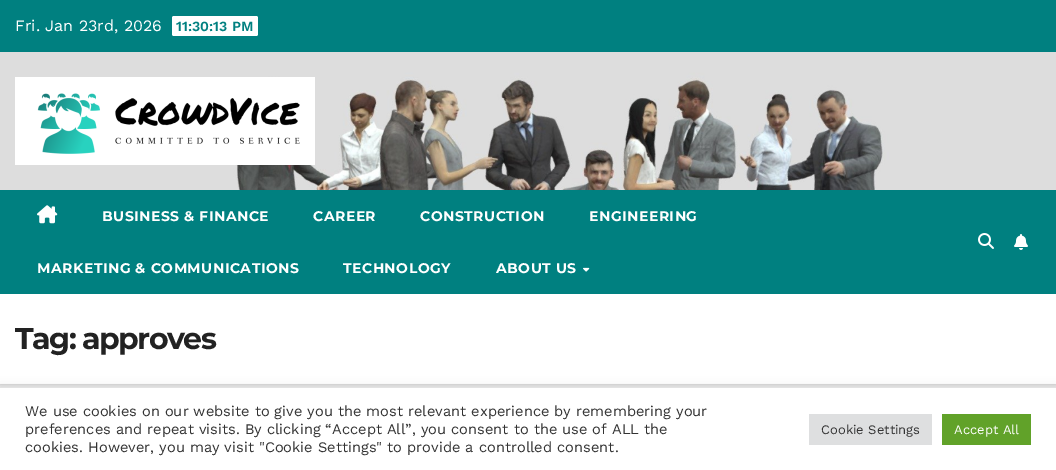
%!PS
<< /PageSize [1056 470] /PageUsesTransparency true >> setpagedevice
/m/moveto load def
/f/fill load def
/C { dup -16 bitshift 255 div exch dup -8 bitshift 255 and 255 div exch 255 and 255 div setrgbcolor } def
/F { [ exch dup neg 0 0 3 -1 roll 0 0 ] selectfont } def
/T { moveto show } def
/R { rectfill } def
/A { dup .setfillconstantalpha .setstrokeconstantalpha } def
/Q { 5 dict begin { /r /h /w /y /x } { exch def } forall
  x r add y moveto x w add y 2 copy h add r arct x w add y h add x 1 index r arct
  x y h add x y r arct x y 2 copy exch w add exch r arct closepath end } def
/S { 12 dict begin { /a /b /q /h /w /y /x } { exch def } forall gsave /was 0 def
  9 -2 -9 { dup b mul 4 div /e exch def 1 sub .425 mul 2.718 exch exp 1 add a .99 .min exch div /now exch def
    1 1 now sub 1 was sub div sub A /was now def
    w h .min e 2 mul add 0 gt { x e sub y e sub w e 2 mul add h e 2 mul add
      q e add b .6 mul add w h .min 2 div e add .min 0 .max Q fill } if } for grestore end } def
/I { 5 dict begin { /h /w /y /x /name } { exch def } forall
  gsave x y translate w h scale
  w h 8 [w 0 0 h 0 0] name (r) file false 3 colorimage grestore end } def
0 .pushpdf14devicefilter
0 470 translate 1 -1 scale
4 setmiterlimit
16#EEEEEE C
0 0 1056 470 R
16#008080 C
0 0 1056 52 R
/WorkSans-Regular 16 F
16#FFFFFF C
(Fri. Jan 23rd, 2026) 15 31 T
172 16 86 20 2 Q f
/WorkSans-SemiBold 14 F
16#008080 C
(11:30:13 PM) 176 31 T
(1.rgb) 0 52 1056 138 I
(2.rgb) 15 77 300 88 I
16#000000 C
0 295 1056 90 0 1.5 .15 S
16#008080 C
0 190 1056 104 R
(3.rgb) 37 205 21 19 I
/Montserrat-Bold 14 F
16#FFFFFF C
102 221 m .5 0 (BUSINESS & FINANCE) ashow
313 221 m .5 0 (CAREER) ashow
420 221 m .5 0 (CONSTRUCTION) ashow
589 221 m .5 0 (ENGINEERING) ashow
37 273 m .5 0 (MARKETING & COMMUNICATIONS) ashow
343 273 m .5 0 (TECHNOLOGY) ashow
496 273 m .5 0 (ABOUT US) ashow
(4.rgb) 583 267 7 5 I
(5.rgb) 978 233 16 16 I
(6.rgb) 1014 234 14 16 I
0 294 1056 90 R
/Montserrat-Bold 30 F
16#222222 C
15 349 m -1.5 0 (Tag: approves) ashow
16#ACABAB C
0 387 1056 82 0 5 .3 S
16#FFFFFF C
0 388 1056 82 R
/WorkSans-Regular 14.65 F
16#333333 C
(We use cookies on our website to give you the most relevant experience by remembering your) 25 416 T
(preferences and repeat visits. By clicking “Accept All”, you consent to the use of ALL the) 25 434 T
(cookies. However, you may visit "Cookie Settings" to provide a controlled consent.) 25 452 T
16#DEDFE0 C
809 414 123 31 R
/WorkSans-Regular 13 F
16#333333 C
(Cookie Settings) 821 434 T
16#61A229 C
942 414 89 31 R
16#FFFFFF C
(Accept All) 954 434 T
.poppdf14devicefilter showpage
